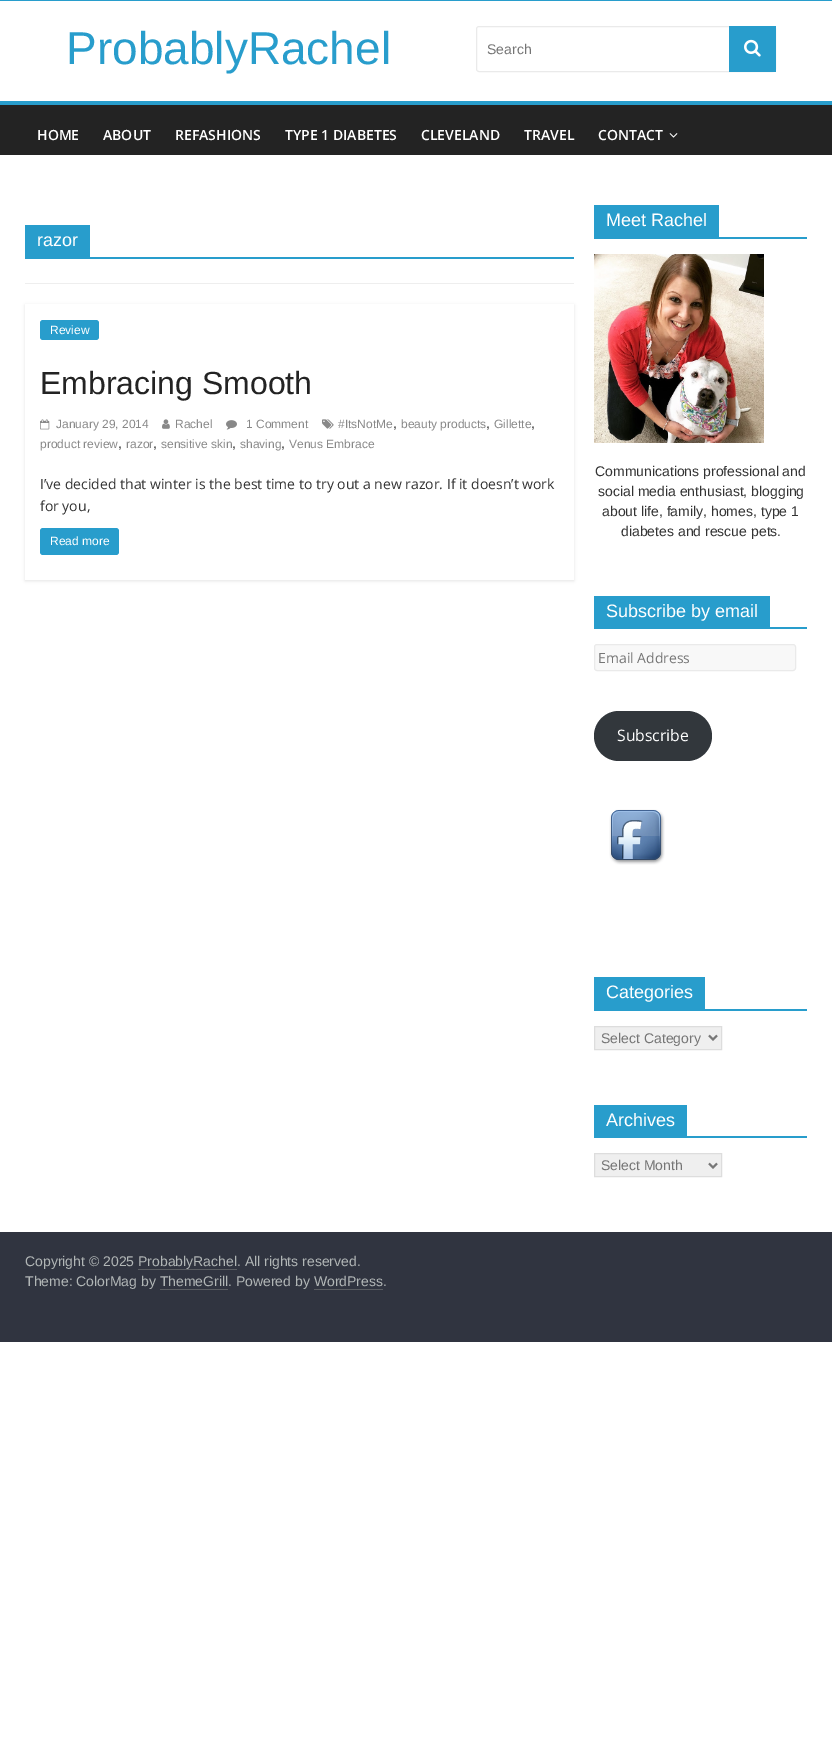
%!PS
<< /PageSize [832 1764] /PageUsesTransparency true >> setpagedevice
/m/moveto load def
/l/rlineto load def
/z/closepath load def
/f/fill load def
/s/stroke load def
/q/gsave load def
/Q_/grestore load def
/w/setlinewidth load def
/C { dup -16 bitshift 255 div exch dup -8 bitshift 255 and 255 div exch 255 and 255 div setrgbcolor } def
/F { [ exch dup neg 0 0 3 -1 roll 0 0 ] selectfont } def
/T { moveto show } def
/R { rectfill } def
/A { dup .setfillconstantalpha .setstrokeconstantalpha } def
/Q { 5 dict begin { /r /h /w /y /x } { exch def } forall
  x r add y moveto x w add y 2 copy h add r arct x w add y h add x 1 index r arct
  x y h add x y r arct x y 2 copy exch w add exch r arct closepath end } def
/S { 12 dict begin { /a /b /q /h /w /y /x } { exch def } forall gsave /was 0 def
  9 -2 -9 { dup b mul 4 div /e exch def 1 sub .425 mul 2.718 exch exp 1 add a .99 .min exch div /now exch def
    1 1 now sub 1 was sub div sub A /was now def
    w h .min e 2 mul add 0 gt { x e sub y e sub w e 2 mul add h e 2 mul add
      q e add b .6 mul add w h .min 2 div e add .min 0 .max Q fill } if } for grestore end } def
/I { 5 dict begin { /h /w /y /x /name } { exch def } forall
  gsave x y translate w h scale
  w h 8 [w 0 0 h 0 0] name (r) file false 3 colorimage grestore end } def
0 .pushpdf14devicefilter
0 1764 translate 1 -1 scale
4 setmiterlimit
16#FFFFFF C
0 0 832 1764 R
16#289DCC C
0 0 832 1 R
/LiberationSans-Regular 46 F
(ProbablyRachel) 66 64 T
16#EAEAEA C
476.5 26.5 299 45 2.5 Q s
/LiberationSans-Regular 14 F
16#757575 C
(Search) 487 54 T
16#289DCC C
729 26 47 46 R
(1.rgb) 744 39 17 18 I
16#232323 C
0 105 832 50 R
16#289DCC C
0 101 832 4 R
/OpenSans-SemiBold 14 F
16#FFFFFF C
(HOME) 37 140 T
(ABOUT) 103 140 T
(REFASHIONS) 175 140 T
(TYPE 1 DIABETES) 285 140 T
(CLEVELAND) 421 140 T
(TRAVEL) 524 140 T
(CONTACT) 598 140 T
(2.rgb) 669 133 9 5 I
16#EEEEEE C
25 283 549 1 R
16#289DCC C
25 257 549 2 R
25 225 65 32 R
/LiberationSans-Regular 18 F
16#FFFFFF C
(razor) 37 246 T
q
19 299 m 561 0 l 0 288 l -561 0 l z 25 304 m 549 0 l 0 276 l -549 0 l z eoclip newpath
16#000000 C
25 305 549 276 0 1.5 .1 S
Q_
16#289DCC C
40 320 59 20 3 Q f
/LiberationSans-Regular 12 F
16#FFFFFF C
(Review) 50 334 T
/LiberationSans-Regular 32 F
16#232323 C
(Embracing Smooth) 40 394 T
(3.rgb) 322 419 12 10 I
/LiberationSans-Regular 12 F
16#888888 C
(#ItsNotMe) 338 428 T
/LiberationSans-Regular 14 F
16#333333 C
(,) 393 428 T
/LiberationSans-Regular 12 F
16#888888 C
(beauty products) 401 428 T
/LiberationSans-Regular 14 F
16#333333 C
(,) 486 428 T
/LiberationSans-Regular 12 F
16#888888 C
(Gillette) 494 428 T
/LiberationSans-Regular 14 F
16#333333 C
(,) 531 428 T
/LiberationSans-Regular 12 F
16#888888 C
(product review) 40 448 T
/LiberationSans-Regular 14 F
16#333333 C
(,) 118 448 T
/LiberationSans-Regular 12 F
16#888888 C
(razor) 126 448 T
/LiberationSans-Regular 14 F
16#333333 C
(,) 153 448 T
/LiberationSans-Regular 12 F
16#888888 C
(sensitive skin) 161 448 T
/LiberationSans-Regular 14 F
16#333333 C
(,) 232 448 T
/LiberationSans-Regular 12 F
16#888888 C
(shaving) 240 448 T
/LiberationSans-Regular 14 F
16#333333 C
(,) 281 448 T
/LiberationSans-Regular 12 F
16#888888 C
(Venus Embrace) 289 448 T
(4.rgb) 40 419 10 11 I
(January 29, 2014) 56 428 T
(5.rgb) 162 419 8 10 I
(Rachel) 175 428 T
(6.rgb) 226 420 11 10 I
(1 Comment) 246 428 T
/OpenSans-Regular 14 F
16#333333 C
(I’ve decided that winter is the best time to try out a new razor. If it doesn’t work) 40 489 T
(for you,) 40 511 T
16#289DCC C
40 528 79 27 3 Q f
/LiberationSans-Regular 12 F
16#FFFFFF C
(Read more) 50 545 T
16#289DCC C
594 237 213 2 R
594 205 125 32 R
/LiberationSans-Regular 18 F
16#FFFFFF C
(Meet Rachel) 606 226 T
(7.rgb) 594 254 170 189 I
/LiberationSans-Regular 14 F
16#333333 C
(Communications professional and) 595 476 T
(social media enthusiast, blogging) 598 496 T
(about life, family, homes, type 1) 602 516 T
(diabetes and rescue pets.) 621 536 T
16#289DCC C
594 627 213 2 R
594 596 176 31 R
/LiberationSans-Regular 18 F
16#FFFFFF C
(Subscribe by email) 606 617 T
16#F8F8F8 C
594.5 644.5 201 26 2.5 Q q f Q_
16#EAEAEA C
s
/OpenSans-Regular 14 F
16#757575 C
(Email Address) 598 663 T
16#32373C C
594 711 118 50 25 Q f
/OpenSans-Regular 15.75 F
16#FFFFFF C
(Subscribe) 617 741 T
(8.rgb) 609 809 56 56 I
16#289DCC C
594 1009 213 2 R
594 977 111 32 R
/LiberationSans-Regular 18 F
16#FFFFFF C
(Categories) 606 998 T
16#EFEFEF C
594.5 1026.5 m 127 0 l 0 23 l -127 0 l z q f Q_
16#DDDDDD C
s
16#777777 C
2 w
709 1035.5 m 4 4 l 4 -4 l s
/LiberationSans-Regular 14 F
16#757575 C
(Select Category) 601 1043 T
16#289DCC C
594 1136 213 2 R
594 1105 93 31 R
/LiberationSans-Regular 18 F
16#FFFFFF C
(Archives) 606 1126 T
16#EFEFEF C
594.5 1153.5 m 127 0 l 0 23 l -127 0 l z q f Q_
16#DDDDDD C
1 w
s
16#777777 C
2 w
709 1163.5 m 4 4 l 4 -4 l s
/LiberationSans-Regular 14 F
16#757575 C
(Select Month) 601 1170 T
16#303440 C
0 1232 832 110 R
16#B1B6B6 C
(Copyright © 2025 ProbablyRachel. All rights reserved.) 25 1266 T
16#5A5D62 C
138 1269 99 1 R
16#B1B6B6 C
(Theme: ColorMag by ThemeGrill. Powered by WordPress.) 25 1286 T
16#5A5D62 C
160 1289 68 1 R
314 1289 69 1 R
.poppdf14devicefilter showpage
